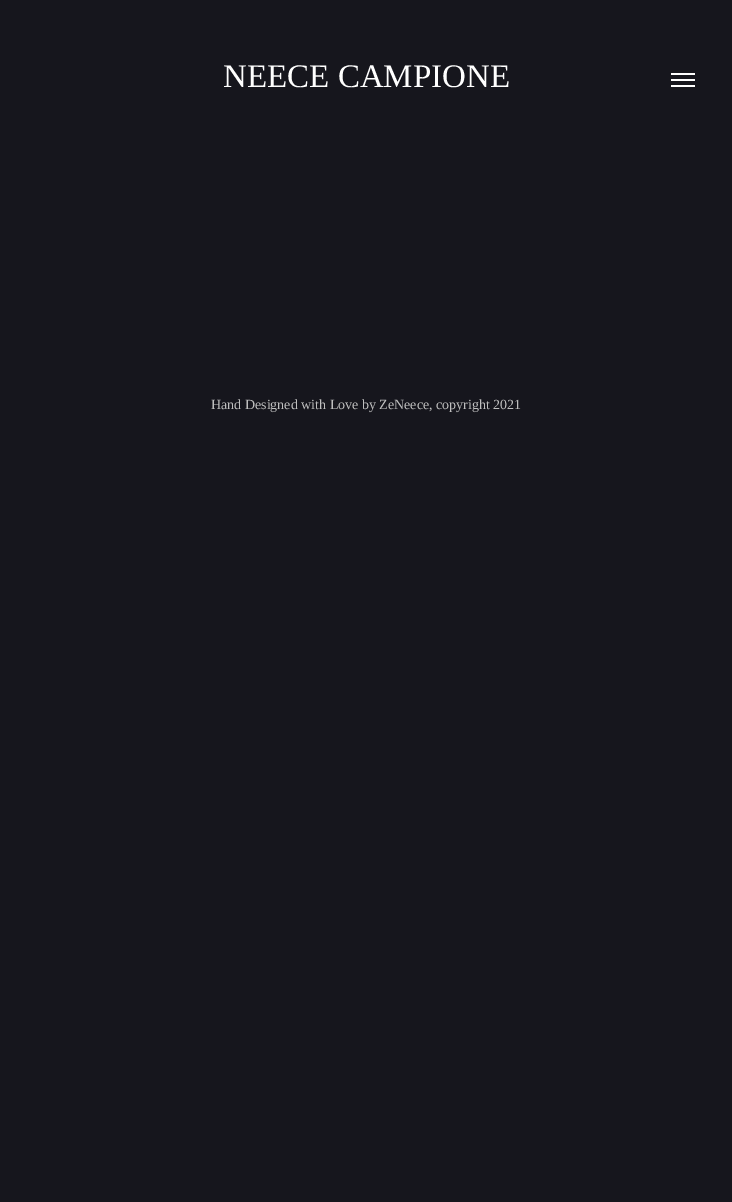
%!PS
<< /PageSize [732 1202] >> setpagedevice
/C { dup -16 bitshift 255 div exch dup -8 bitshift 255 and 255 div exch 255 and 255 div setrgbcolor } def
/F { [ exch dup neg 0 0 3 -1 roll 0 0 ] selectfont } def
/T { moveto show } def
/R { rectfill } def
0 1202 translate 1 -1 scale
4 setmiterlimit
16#16161D C
0 0 732 1202 R
/LiberationSerif-Regular 33 F
16#FFFFFF C
(NEECE CAMPIONE) 223 87 T
671 73 24 2 R
671 79 24 2 R
671 85 24 2 R
/LiberationSerif-Regular 14 F
16#BFBFBF C
(Hand Designed with Love by ZeNeece, copyright 2021) 211 409 T
showpage
